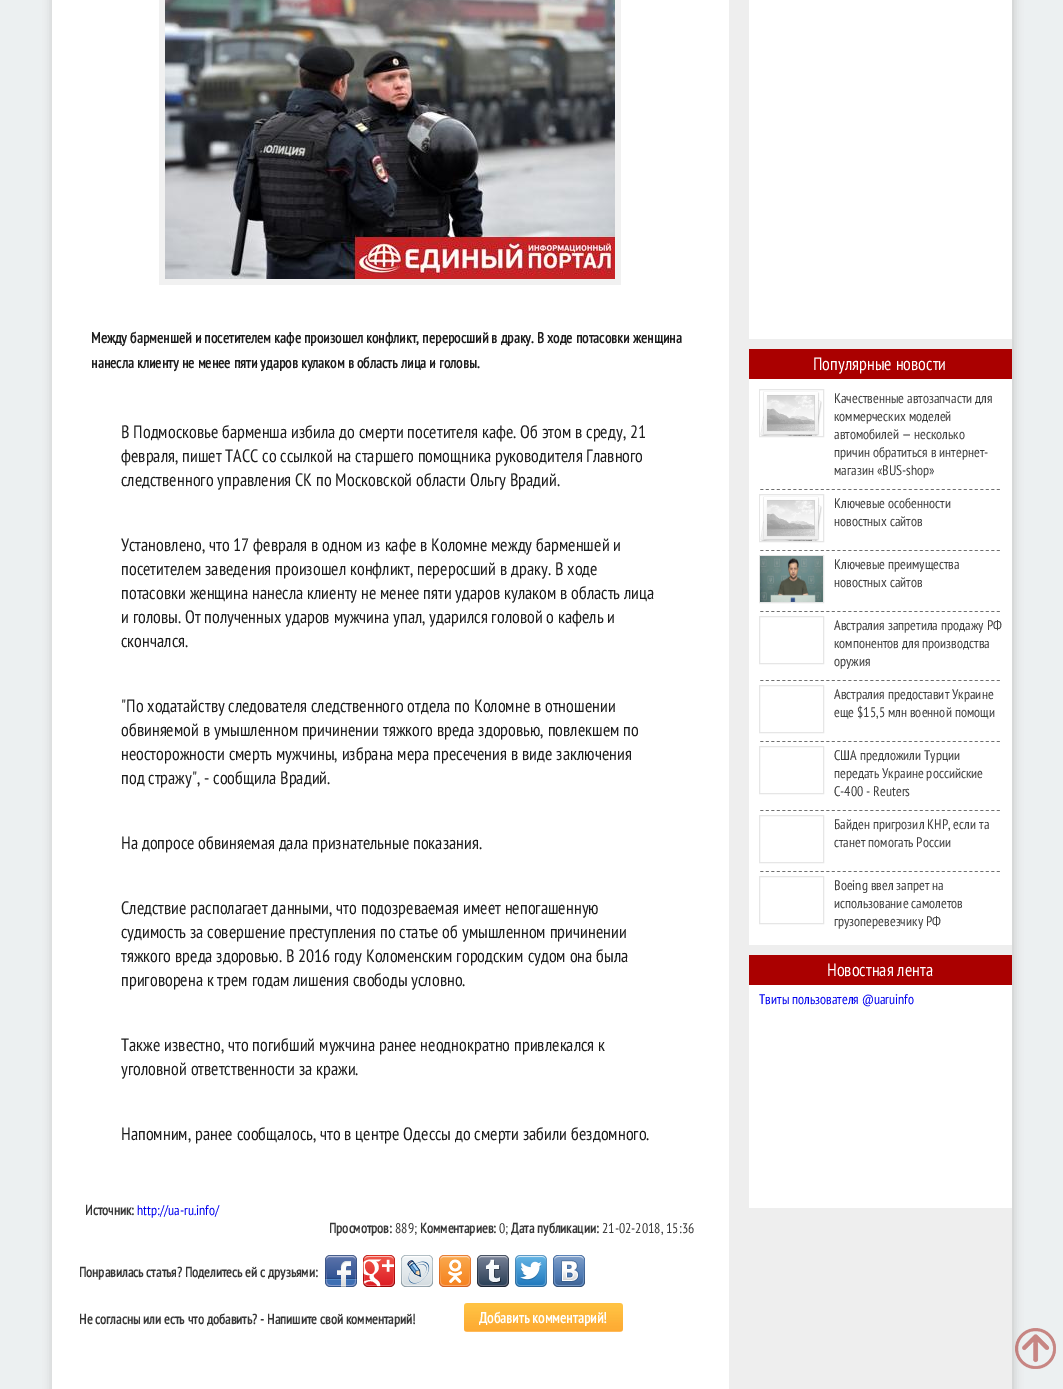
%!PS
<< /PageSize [1063 1389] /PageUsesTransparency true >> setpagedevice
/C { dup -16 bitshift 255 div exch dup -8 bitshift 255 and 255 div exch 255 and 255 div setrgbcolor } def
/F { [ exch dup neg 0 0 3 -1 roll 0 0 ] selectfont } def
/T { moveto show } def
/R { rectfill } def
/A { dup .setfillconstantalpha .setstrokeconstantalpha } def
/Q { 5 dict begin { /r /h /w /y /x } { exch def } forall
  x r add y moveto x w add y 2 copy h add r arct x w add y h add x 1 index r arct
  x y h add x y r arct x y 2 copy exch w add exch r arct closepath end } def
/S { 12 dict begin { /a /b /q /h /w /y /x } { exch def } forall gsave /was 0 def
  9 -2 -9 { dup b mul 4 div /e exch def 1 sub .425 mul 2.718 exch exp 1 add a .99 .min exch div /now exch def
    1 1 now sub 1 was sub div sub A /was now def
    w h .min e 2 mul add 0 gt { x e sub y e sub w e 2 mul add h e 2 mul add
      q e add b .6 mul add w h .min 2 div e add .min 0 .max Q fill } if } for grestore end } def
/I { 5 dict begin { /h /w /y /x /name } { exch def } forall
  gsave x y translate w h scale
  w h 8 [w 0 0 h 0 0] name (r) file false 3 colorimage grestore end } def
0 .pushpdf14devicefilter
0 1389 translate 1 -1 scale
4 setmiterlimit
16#ECF0F1 C
0 0 1063 1389 R
16#C0C0C0 C
53 -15 960 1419 0 5 1 S
16#EEEEEE C
729 0 283 1389 R
16#FFFFFF C
52 0 677 1389 R
16#F1F1F1 C
159 0 462 285 R
(1.rgb) 165 0 450 279 I
/PTSansNarrow-Bold 15 F
16#1D1D1D C
(Между барменшей и посетителем кафе произошел конфликт, переросший в драку. В ходе потасовки женщина) 91 343 T
(нанесла клиенту не менее пяти ударов кулаком в область лица и головы.) 91 368 T
/PTSansNarrow-Regular 18 F
(В Подмосковье барменша избила до смерти посетителя кафе. Об этом в среду, 21) 121 438 T
(февраля, пишет ТАСС со ссылкой на старшего помощника руководителя Главного) 121 462 T
(следственного управления СК по Московской области Ольгу Врадий.) 121 486 T
(Установлено, что 17 февраля в одном из кафе в Коломне между барменшей и) 121 551 T
(посетителем заведения произошел конфликт, переросший в драку. В ходе) 121 575 T
(потасовки женщина нанесла клиенту не менее пяти ударов кулаком в область лица) 121 599 T
(и головы. От полученных ударов мужчина упал, ударился головой о кафель и) 121 623 T
(скончался.) 121 647 T
("По ходатайству следователя следственного отдела по Коломне в отношении) 121 712 T
(обвиняемой в умышленном причинении тяжкого вреда здоровью, повлекшем по) 121 736 T
(неосторожности смерть мужчины, избрана мера пресечения в виде заключения) 121 760 T
(под стражу", - сообщила Врадий.) 121 784 T
(На допросе обвиняемая дала признательные показания.) 121 849 T
(Следствие располагает данными, что подозреваемая имеет непогашенную) 121 914 T
(судимость за совершение преступления по статье об умышленном причинении) 121 938 T
(тяжкого вреда здоровью. В 2016 году Коломенским городским судом она была) 121 962 T
(приговорена к трем годам лишения свободы условно.) 121 986 T
(Также известно, что погибший мужчина ранее неоднократно привлекался к) 121 1051 T
(уголовной ответственности за кражи.) 121 1075 T
(Напомним, ранее сообщалось, что в центре Одессы до смерти забили бездомного.) 121 1140 T
/PTSansNarrow-Bold 14 F
16#373737 C
(Источник:) 85 1215 T
/PTSansNarrow-Regular 14 F
16#0000EE C
(http://ua-ru.info/) 137 1215 T
/PTSansNarrow-Bold 14 F
16#373737 C
(Просмотров:) 329 1233 T
/PTSansNarrow-Regular 14 F
(889;) 395 1233 T
/PTSansNarrow-Bold 14 F
(Комментариев:) 420 1233 T
/PTSansNarrow-Regular 14 F
(0;) 499 1233 T
/PTSansNarrow-Bold 14 F
(Дата публикации:) 511 1233 T
/PTSansNarrow-Regular 14 F
(21-02-2018, 15:36) 602 1233 T
/PTSansNarrow-Bold 14 F
(Понравилась статья? Поделитесь ей с друзьями:) 79 1277 T
(2.rgb) 325 1255 32 32 I
(3.rgb) 363 1255 32 32 I
(4.rgb) 401 1255 32 32 I
(5.rgb) 439 1255 32 32 I
(6.rgb) 477 1255 32 32 I
(7.rgb) 515 1255 32 32 I
(8.rgb) 553 1255 32 32 I
(Не согласны или есть что добавить? - Напишите свой комментарий!) 79 1324 T
(9.rgb) 464 1303 159 29 I
/PTSansNarrow-Bold 15 F
16#FFFFFF C
(Добавить комментарий!) 479 1323 T
749 0 263 339 R
16#AA0000 C
749 349 263 30 R
/PTSansNarrow-Regular 18 F
16#FFFFFF C
(Популярные новости) 813 370 T
749 379 263 566 R
16#E6E6E6 C
759.5 389.5 64 47 rectstroke
(10.rgb) 760 391 62 45 I
/PTSansNarrow-Regular 14 F
16#3E3E3E C
(Качественные автозапчасти для) 834 403 T
(коммерческих моделей) 834 421 T
(автомобилей — несколько) 834 439 T
(причин обратиться в интернет-) 834 457 T
(магазин «BUS-shop») 834 475 T
(11.rgb) 760 489 240 1 I
16#E6E6E6 C
759.5 494.5 64 47 rectstroke
(10.rgb) 760 496 62 45 I
16#3E3E3E C
(Ключевые особенности) 834 508 T
(новостных сайтов) 834 526 T
(11.rgb) 760 550 240 1 I
16#E6E6E6 C
759.5 555.5 64 47 rectstroke
(12.rgb) 760 556 63 46 I
16#3E3E3E C
(Ключевые преимущества) 834 569 T
(новостных сайтов) 834 587 T
(11.rgb) 760 611 240 1 I
16#E6E6E6 C
759.5 616.5 64 47 rectstroke
16#3E3E3E C
(Австралия запретила продажу РФ) 834 630 T
(компонентов для производства) 834 648 T
(оружия) 834 666 T
(11.rgb) 760 680 240 1 I
16#E6E6E6 C
759.5 685.5 64 47 rectstroke
16#3E3E3E C
(Австралия предоставит Украине) 834 699 T
(еще $15,5 млн военной помощи) 834 717 T
(11.rgb) 760 741 240 1 I
16#E6E6E6 C
759.5 746.5 64 47 rectstroke
16#3E3E3E C
(США предложили Турции) 834 760 T
(передать Украине российские) 834 778 T
(С-400 - Reuters) 834 796 T
(11.rgb) 760 810 240 1 I
16#E6E6E6 C
759.5 815.5 64 47 rectstroke
16#3E3E3E C
(Байден пригрозил КНР, если та) 834 829 T
(станет помогать России) 834 847 T
(11.rgb) 760 871 240 1 I
16#E6E6E6 C
759.5 876.5 64 47 rectstroke
16#3E3E3E C
(Boeing ввел запрет на) 834 890 T
(использование самолетов) 834 908 T
(грузоперевезчику РФ) 834 926 T
16#AA0000 C
749 955 263 30 R
/PTSansNarrow-Regular 18 F
16#FFFFFF C
(Новостная лента) 827 976 T
749 985 263 223 R
/PTSansNarrow-Regular 14 F
16#0000EE C
(Твиты пользователя @uaruinfo) 759 1004 T
(13.rgb) 1015 1328 41 41 I
.poppdf14devicefilter showpage
